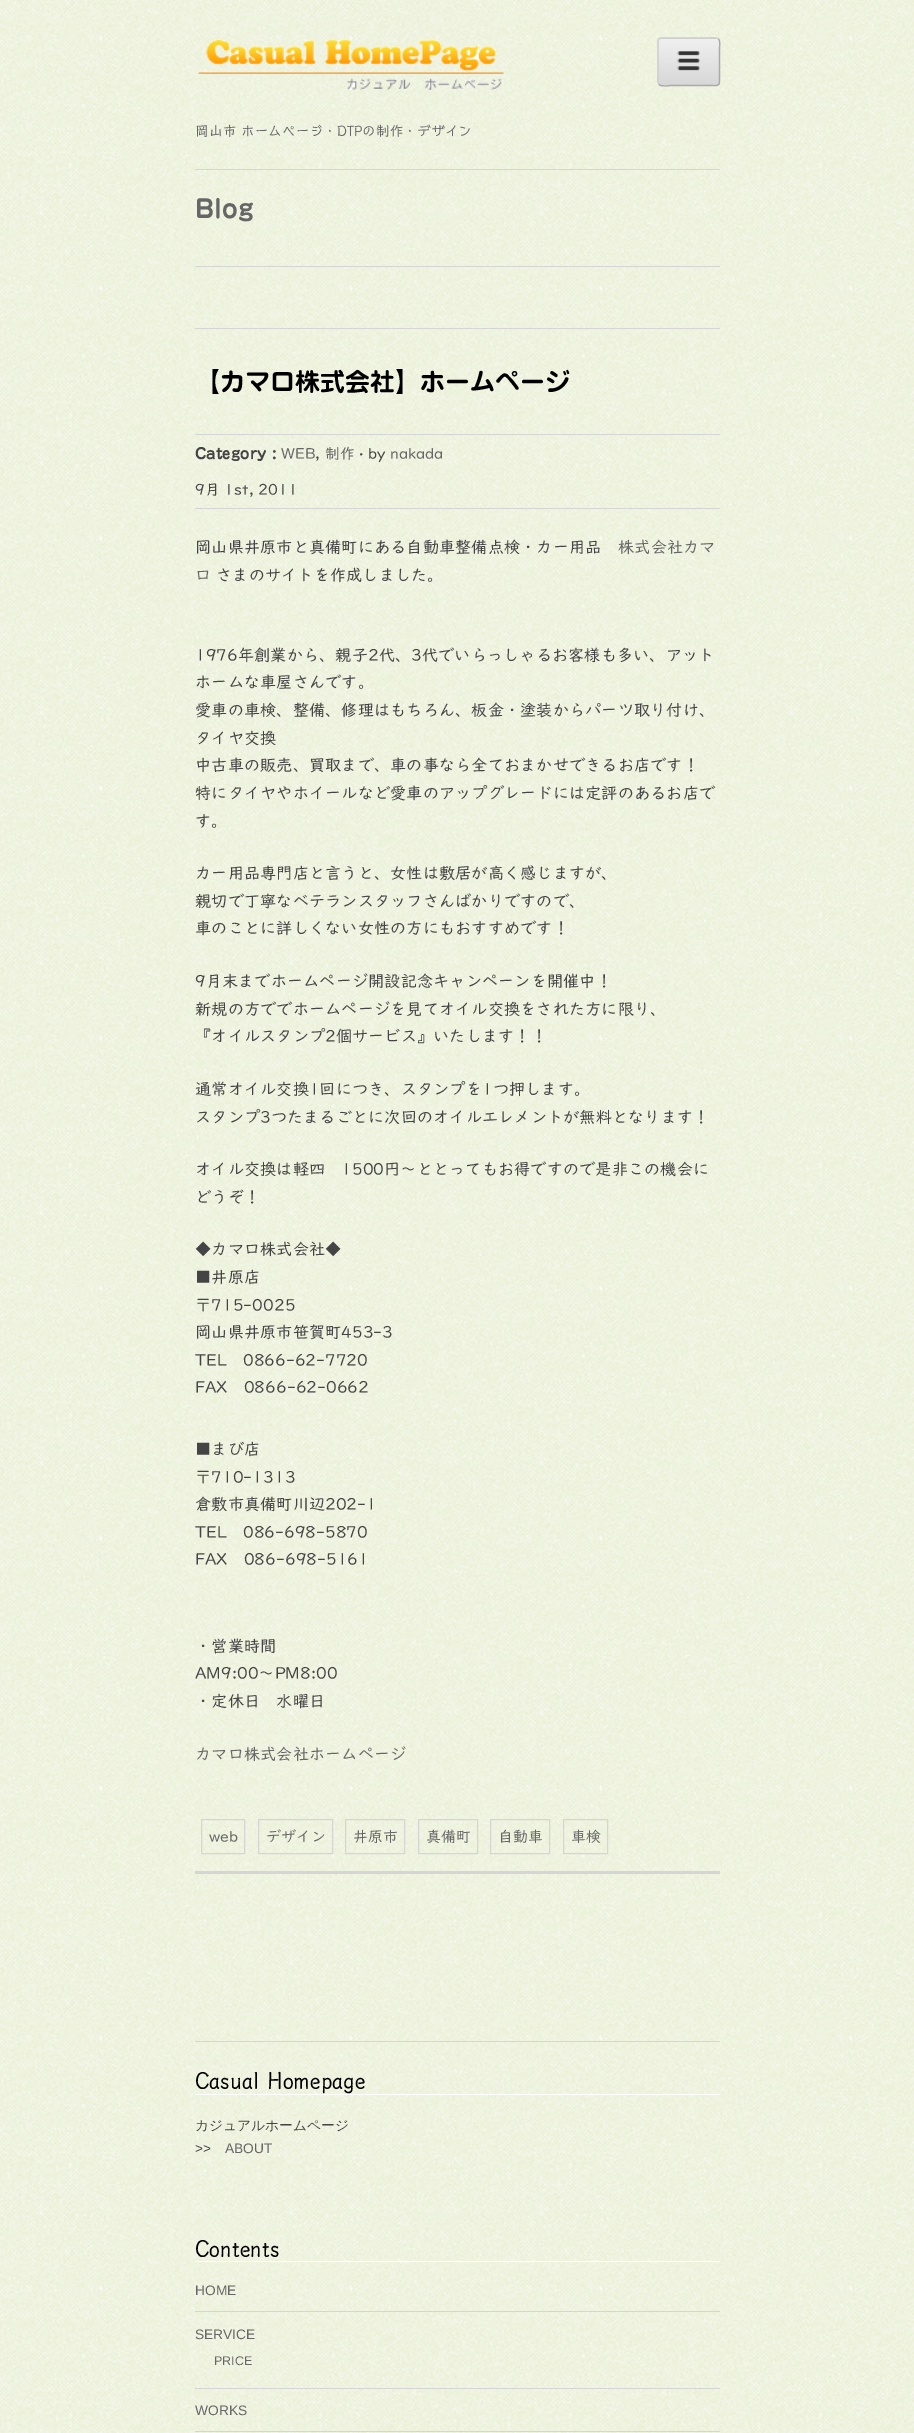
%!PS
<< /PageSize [914 2433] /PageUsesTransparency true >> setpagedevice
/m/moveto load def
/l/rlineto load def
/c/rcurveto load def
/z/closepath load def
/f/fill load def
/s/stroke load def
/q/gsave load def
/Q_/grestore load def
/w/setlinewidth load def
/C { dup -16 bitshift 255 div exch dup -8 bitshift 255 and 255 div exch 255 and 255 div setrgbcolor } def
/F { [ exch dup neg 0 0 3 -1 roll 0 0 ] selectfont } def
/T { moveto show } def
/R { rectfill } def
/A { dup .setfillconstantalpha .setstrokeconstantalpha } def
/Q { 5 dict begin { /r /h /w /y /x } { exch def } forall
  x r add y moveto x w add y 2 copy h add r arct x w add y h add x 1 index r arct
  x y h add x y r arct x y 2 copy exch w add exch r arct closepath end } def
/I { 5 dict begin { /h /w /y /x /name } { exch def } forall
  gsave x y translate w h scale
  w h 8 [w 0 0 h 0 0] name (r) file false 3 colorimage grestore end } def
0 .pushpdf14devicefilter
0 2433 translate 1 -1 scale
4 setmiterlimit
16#FFFFFF C
0 0 914 2433 R
(1.rgb) 0 0 914 2433 I
(2.rgb) 198 39 306 51 I
16#EEEEEE C
658 38 62 48 4 Q f
q
658 38 62 48 4 Q clip newpath
0.1 A
q 658 38 m 62 0 l 0 1 l -62 0 l z clip newpath
<< /ShadingType 2 /ColorSpace /DeviceRGB /Coords [689 -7.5 689 39] /Extend [true true] /Function << /FunctionType 2 /Domain [0 1] /C0 [1 1 1] /C1 [0 0 0] /N 1 >> >> shfill Q_
q 658 39 m 62 0 l 0 46 l -62 0 l z clip newpath
<< /ShadingType 2 /ColorSpace /DeviceRGB /Coords [689 39 689 85] /Extend [true true] /Function << /FunctionType 2 /Domain [0 1] /C0 [1 1 1] /C1 [0 0 0] /N 1 >> >> shfill Q_
Q_
16#AAAAAA C
1.2 w
718.5 39 m 2 2 1 8 1 9 c 0 27.5 l 0 12 .5 10 -12.5 10 c -36.5 0 l -1 0 -9 1.5 -11.5 -1 c s
16#CCCCCC C
659 84.5 m -2 -2 -1 -8 -1 -9 c 0 -27.5 l 0 -12 -.5 -10 12.5 -10 c 36.5 0 l 1 0 9 -1 11.5 1 c s
(3.rgb) 677 51 23 20 I
/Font-Regular 13.75 F
16#666666 C
(岡山市 ホームページ・DTPの制作・デザイン) 195 136 T
16#D5D5D5 C
195 169 525 1 R
195 328 525 1 R
/Font-SemiBold 25 F
16#666666 C
(Blog) 195 218 T
16#D5D5D5 C
195 266 525 1 R
195 1871 525 3 R
16#000000 C
(【カマロ株式会社】ホームページ) 195 391 T
16#D5D5D5 C
195 434 525 1 R
195 508 525 1 R
/Font-SemiBold 15 F
16#444444 C
(Category :) 195 459 T
/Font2-Regular 15 F
16#666666 C
(WEB) 281 459 T
16#444444 C
(,) 315 459 T
16#666666 C
(制作) 325 459 T
16#444444 C
(· by) 359 459 T
16#666666 C
(nakada) 390 459 T
16#444444 C
(9月 1st, 2011) 195 495 T
/Font2-Regular 16.25 F
(岡山県井原市と真備町にある自動車整備点検・カー用品) 195 553 T
16#666666 C
(株式会社カマ) 618 553 T
(ロ) 195 581 T
16#444444 C
(さまのサイトを作成しました。) 216 581 T
(1976年創業から、親子2代、3代でいらっしゃるお客様も多い、アット) 195 661 T
(ホームな車屋さんです。) 195 688 T
(愛車の車検、整備、修理はもちろん、板金・塗装からパーツ取り付け、) 195 716 T
(タイヤ交換) 195 744 T
(中古車の販売、買取まで、車の事なら全ておまかせできるお店です！) 195 771 T
(特にタイヤやホイールなど愛車のアップグレードには定評のあるお店で) 195 799 T
(す。) 195 827 T
(カー用品専門店と言うと、女性は敷居が高く感じますが、) 195 879 T
(親切で丁寧なベテランスタッフさんばかりですので、) 195 907 T
(車のことに詳しくない女性の方にもおすすめです！) 195 934 T
(9月末までホームページ開設記念キャンペーンを開催中！) 195 987 T
(新規の方ででホームページを見てオイル交換をされた方に限り、) 195 1015 T
(『オイルスタンプ2個サービス』いたします！！) 195 1042 T
(通常オイル交換1回につき、スタンプを1つ押します。) 195 1095 T
(スタンプ3つたまるごとに次回のオイルエレメントが無料となります！) 195 1123 T
(オイル交換は軽四　1500円～ととってもお得ですので是非この機会に) 195 1175 T
(どうぞ！) 195 1203 T
(◆カマロ株式会社◆) 195 1255 T
(■井原店) 195 1283 T
(〒715-0025) 195 1311 T
(岡山県井原市笹賀町453-3) 195 1338 T
(TEL　0866-62-7720) 195 1366 T
(FAX　0866-62-0662) 195 1393 T
(■まび店) 195 1455 T
(〒710-1313) 195 1483 T
(倉敷市真備町川辺202-1) 195 1510 T
(TEL　086-698-5870) 195 1538 T
(FAX　086-698-5161) 195 1565 T
(・営業時間) 195 1652 T
(AM9:00～PM8:00) 195 1679 T
(・定休日　水曜日) 195 1707 T
16#666666 C
(カマロ株式会社ホームページ) 195 1760 T
16#D5D5D5 C
1 w
201.5 1819.5 43 34 rectstroke
/Font2-Regular 15 F
16#666666 C
(web) 209 1842 T
16#D5D5D5 C
258.5 1819.5 74 34 rectstroke
16#666666 C
(デザイン) 266 1842 T
16#D5D5D5 C
345.5 1819.5 59 34 rectstroke
16#666666 C
(井原市) 353 1842 T
16#D5D5D5 C
418.5 1819.5 59 34 rectstroke
16#666666 C
(真備町) 426 1842 T
16#D5D5D5 C
490.5 1819.5 59 34 rectstroke
16#666666 C
(自動車) 498 1842 T
16#D5D5D5 C
563.5 1819.5 44 34 rectstroke
16#666666 C
(車検) 571 1842 T
16#D5D5D5 C
195 2041 525 1 R
16#FFFFFF C
195 2094 525 1 R
/Font-Regular 22.5 F
16#000000 C
(Casual Homepage) 195 2089 T
/WenQuanYiZenHei-Medium 13.75 F
16#444444 C
(カジュアルホームページ) 195 2130 T
/LiberationSans-Regular 13.75 F
(>>) 195 2153 T
16#666666 C
(ABOUT) 225 2153 T
16#FFFFFF C
195 2261 525 1 R
/Font-Regular 22.5 F
16#000000 C
(Contents) 195 2257 T
16#D5D5D5 C
195 2311 525 1 R
/LiberationSans-Regular 13.75 F
16#666666 C
(HOME) 195 2295 T
16#D5D5D5 C
195 2388 525 1 R
16#666666 C
(SERVICE) 195 2339 T
/LiberationSans-Regular 12.5 F
(PRICE) 214 2365 T
16#D5D5D5 C
195 2431 525 1 R
/LiberationSans-Regular 13.75 F
16#666666 C
(WORKS) 195 2415 T
.poppdf14devicefilter showpage
